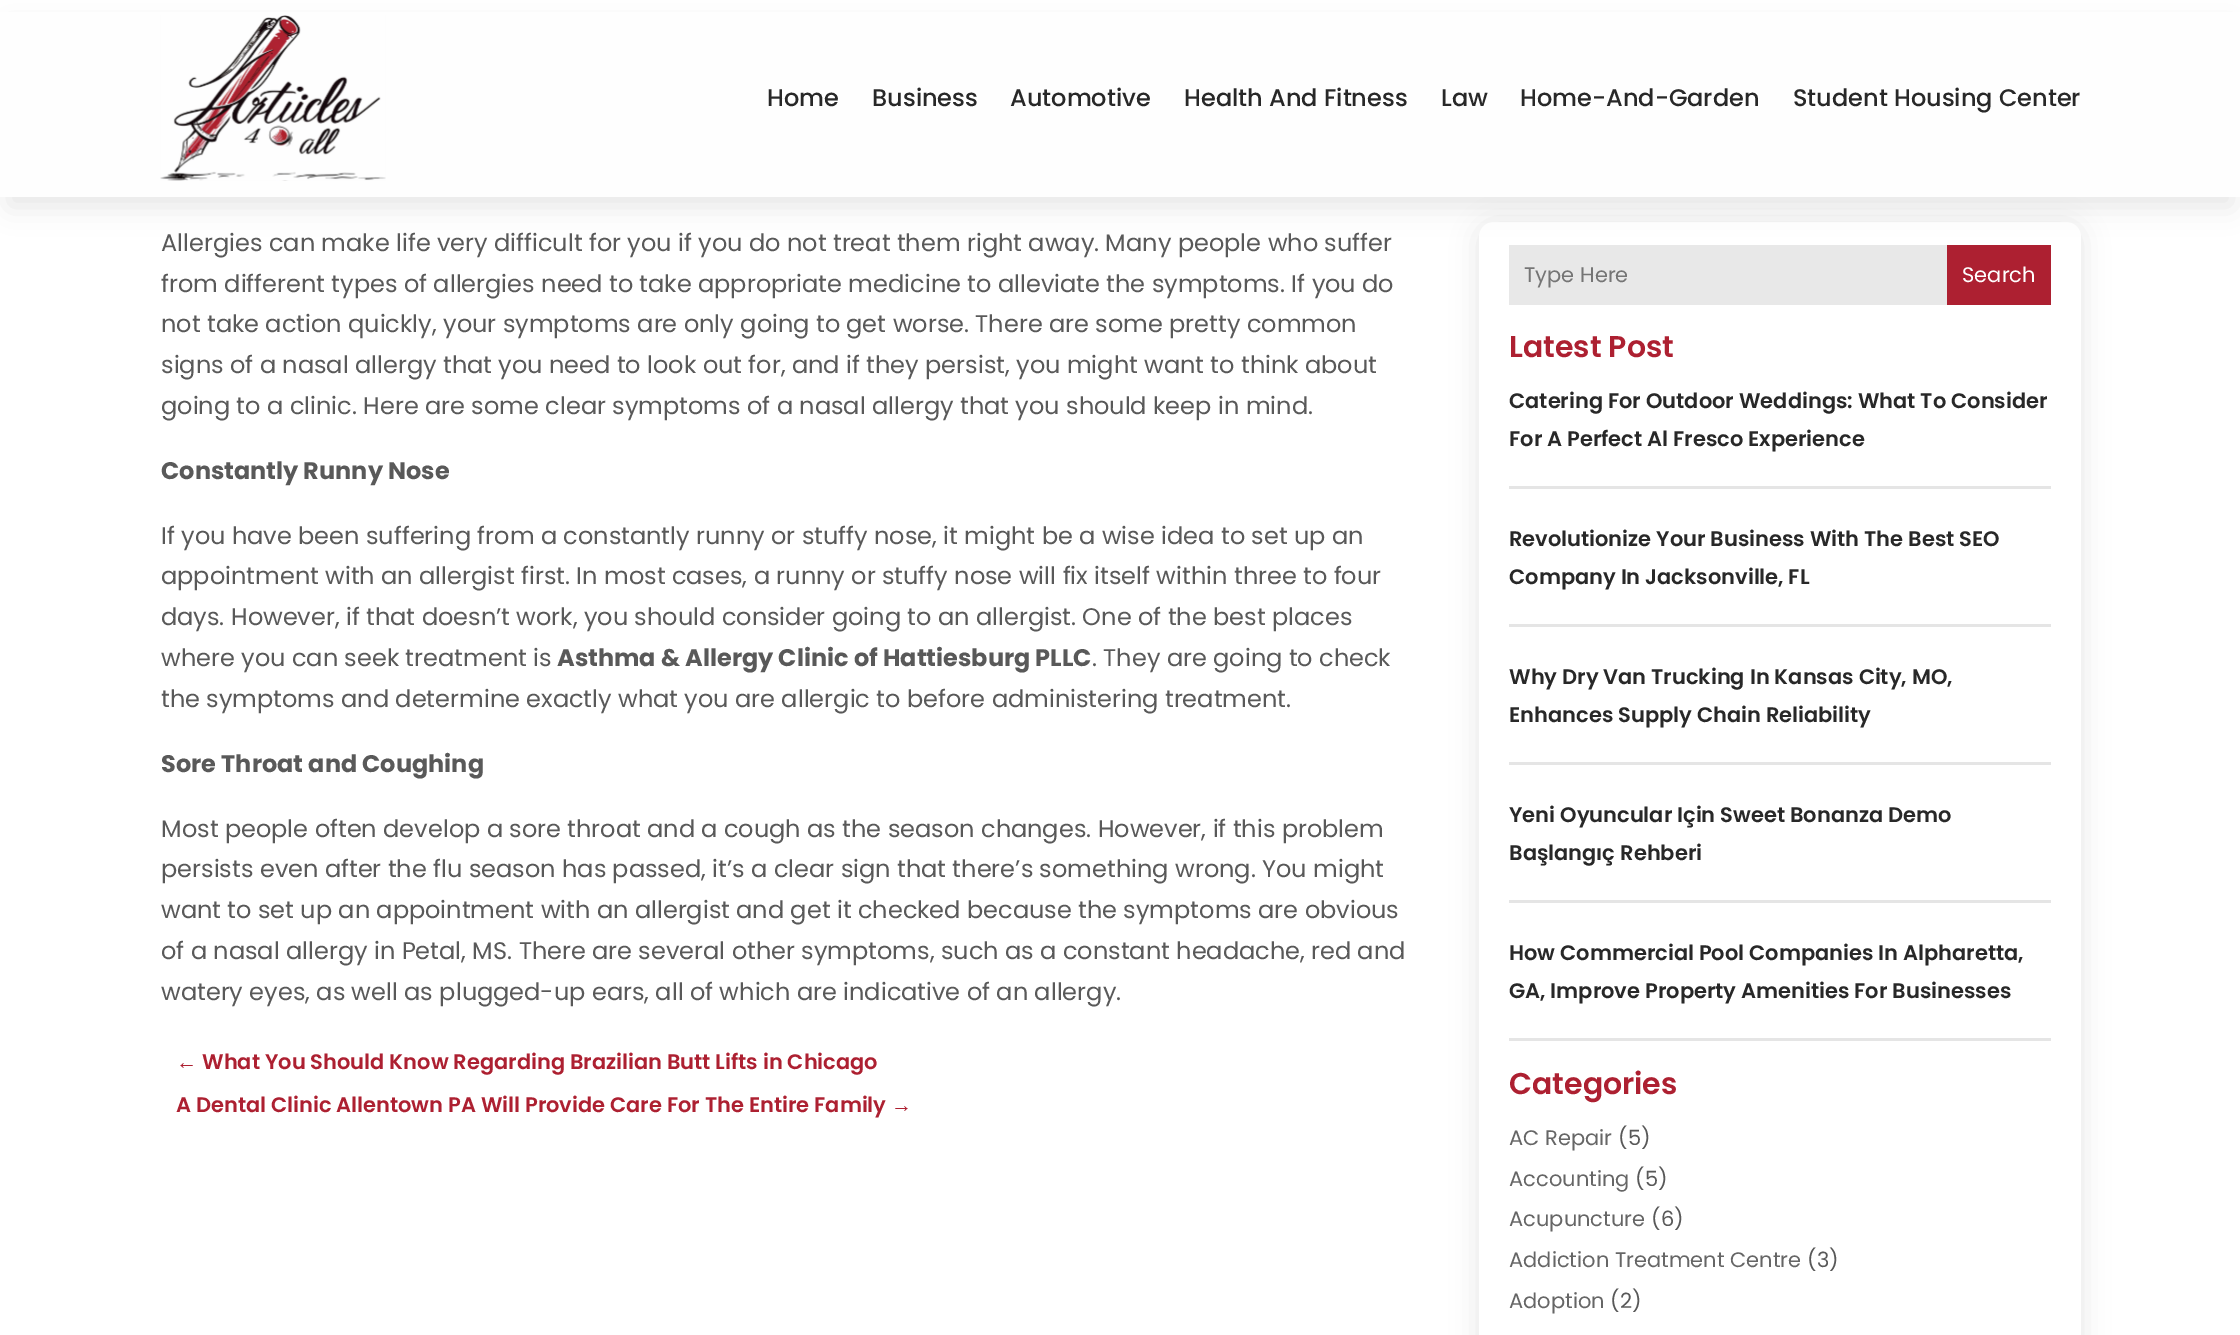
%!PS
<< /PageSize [2240 1335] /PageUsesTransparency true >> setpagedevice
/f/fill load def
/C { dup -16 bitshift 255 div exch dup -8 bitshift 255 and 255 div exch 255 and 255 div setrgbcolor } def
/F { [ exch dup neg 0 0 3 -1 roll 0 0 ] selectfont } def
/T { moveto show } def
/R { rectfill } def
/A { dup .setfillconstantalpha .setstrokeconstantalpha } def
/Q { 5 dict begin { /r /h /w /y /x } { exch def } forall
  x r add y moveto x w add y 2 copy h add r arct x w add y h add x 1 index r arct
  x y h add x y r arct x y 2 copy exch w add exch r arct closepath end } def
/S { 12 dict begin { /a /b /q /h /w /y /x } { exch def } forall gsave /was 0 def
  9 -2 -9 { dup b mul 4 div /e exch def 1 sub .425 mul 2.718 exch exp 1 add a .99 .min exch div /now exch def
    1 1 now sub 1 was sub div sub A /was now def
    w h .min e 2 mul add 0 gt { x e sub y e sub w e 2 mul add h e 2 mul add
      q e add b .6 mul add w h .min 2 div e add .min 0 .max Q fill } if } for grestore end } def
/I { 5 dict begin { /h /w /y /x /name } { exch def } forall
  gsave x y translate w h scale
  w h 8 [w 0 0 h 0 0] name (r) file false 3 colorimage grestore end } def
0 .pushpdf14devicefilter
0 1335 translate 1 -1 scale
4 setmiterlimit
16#FFFFFF C
0 0 2240 1335 R
16#000000 C
1479 225 602 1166 15 13.5 .1 S
16#FFFFFF C
1479 222 602 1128 15 Q f
16#E8E8E8 C
1509 245 438 60 R
16#AD2031 C
1947 245 104 60 R
16#000000 C
9 27 2223 179 0 13.5 .1 S
16#FEFEFE C
0 12 2240 185 R
(1.rgb) 160 15 226 166 I
/Poppins-Medium 24 F
16#282828 C
(Home) 767 106 T
(Business) 872 106 T
(Automotive) 1010 106 T
(Health And Fitness) 1184 106 T
(Law) 1441 106 T
(Home-And-Garden) 1520 106 T
(Student Housing Center) 1793 106 T
/Poppins-Regular 24 F
16#595959 C
(Allergies can make life very difficult for you if you do not treat them right away. Many people who suffer) 161 251 T
(from different types of allergies need to take appropriate medicine to alleviate the symptoms. If you do) 161 292 T
(not take action quickly, your symptoms are only going to get worse. There are some pretty common) 161 332 T
(signs of a nasal allergy that you need to look out for, and if they persist, you might want to think about) 161 373 T
(going to a clinic. Here are some clear symptoms of a nasal allergy that you should keep in mind.) 161 414 T
/Poppins-Bold 24 F
(Constantly Runny Nose) 161 479 T
/Poppins-Regular 24 F
(If you have been suffering from a constantly runny or stuffy nose, it might be a wise idea to set up an) 161 544 T
(appointment with an allergist first. In most cases, a runny or stuffy nose will fix itself within three to four) 161 584 T
(days. However, if that doesn’t work, you should consider going to an allergist. One of the best places) 161 625 T
(where you can seek treatment is) 161 666 T
/Poppins-Bold 24 F
(Asthma & Allergy Clinic of Hattiesburg PLLC) 557 666 T
/Poppins-Regular 24 F
(. They are going to check) 1092 666 T
(the symptoms and determine exactly what you are allergic to before administering treatment.) 161 707 T
/Poppins-Bold 24 F
(Sore Throat and Coughing) 161 772 T
/Poppins-Regular 24 F
(Most people often develop a sore throat and a cough as the season changes. However, if this problem) 161 837 T
(persists even after the flu season has passed, it’s a clear sign that there’s something wrong. You might) 161 877 T
(want to set up an appointment with an allergist and get it checked because the symptoms are obvious) 161 918 T
(of a nasal allergy in Petal, MS. There are several other symptoms, such as a constant headache, red and) 161 959 T
(watery eyes, as well as plugged-up ears, all of which are indicative of an allergy.) 161 1000 T
/LiberationSans-Bold 21 F
16#AD2031 C
(←) 176 1069 T
/Poppins-SemiBold 21 F
(What You Should Know Regarding Brazilian Butt Lifts in Chicago) 202 1069 T
(A Dental Clinic Allentown PA Will Provide Care For The Entire Family) 176 1112 T
/LiberationSans-Bold 21 F
(→) 891 1112 T
/Poppins-Regular 21 F
16#757575 C
(Type Here) 1524 282 T
16#FFFFFF C
(Search) 1962 282 T
/Poppins-SemiBold 30 F
16#AD2031 C
(Latest Post) 1509 357 T
16#E5E5E5 C
1509 486 542 3 R
/Poppins-SemiBold 21 F
16#282828 C
(Catering For Outdoor Weddings: What To Consider) 1509 408 T
(For A Perfect Al Fresco Experience) 1509 446 T
16#E5E5E5 C
1509 624 542 3 R
16#282828 C
(Revolutionize Your Business With The Best SEO) 1509 546 T
(Company In Jacksonville, FL) 1509 584 T
16#E5E5E5 C
1509 762 542 3 R
16#282828 C
(Why Dry Van Trucking In Kansas City, MO,) 1509 684 T
(Enhances Supply Chain Reliability) 1509 722 T
16#E5E5E5 C
1509 900 542 3 R
16#282828 C
(Yeni Oyuncular Için Sweet Bonanza Demo) 1509 822 T
(Başlangıç Rehberi) 1509 860 T
16#E5E5E5 C
1509 1038 542 3 R
16#282828 C
(How Commercial Pool Companies In Alpharetta,) 1509 960 T
(GA, Improve Property Amenities For Businesses) 1509 998 T
/Poppins-SemiBold 30 F
16#AD2031 C
(Categories) 1509 1094 T
/Poppins-Regular 21 F
16#666666 C
(AC Repair) 1509 1145 T
16#595959 C
(\(5\)) 1618 1145 T
16#666666 C
(Accounting) 1509 1186 T
16#595959 C
(\(5\)) 1635 1186 T
16#666666 C
(Acupuncture) 1509 1226 T
16#595959 C
(\(6\)) 1651 1226 T
16#666666 C
(Addiction Treatment Centre) 1509 1267 T
16#595959 C
(\(3\)) 1807 1267 T
16#666666 C
(Adoption) 1509 1308 T
16#595959 C
(\(2\)) 1610 1308 T
.poppdf14devicefilter showpage
